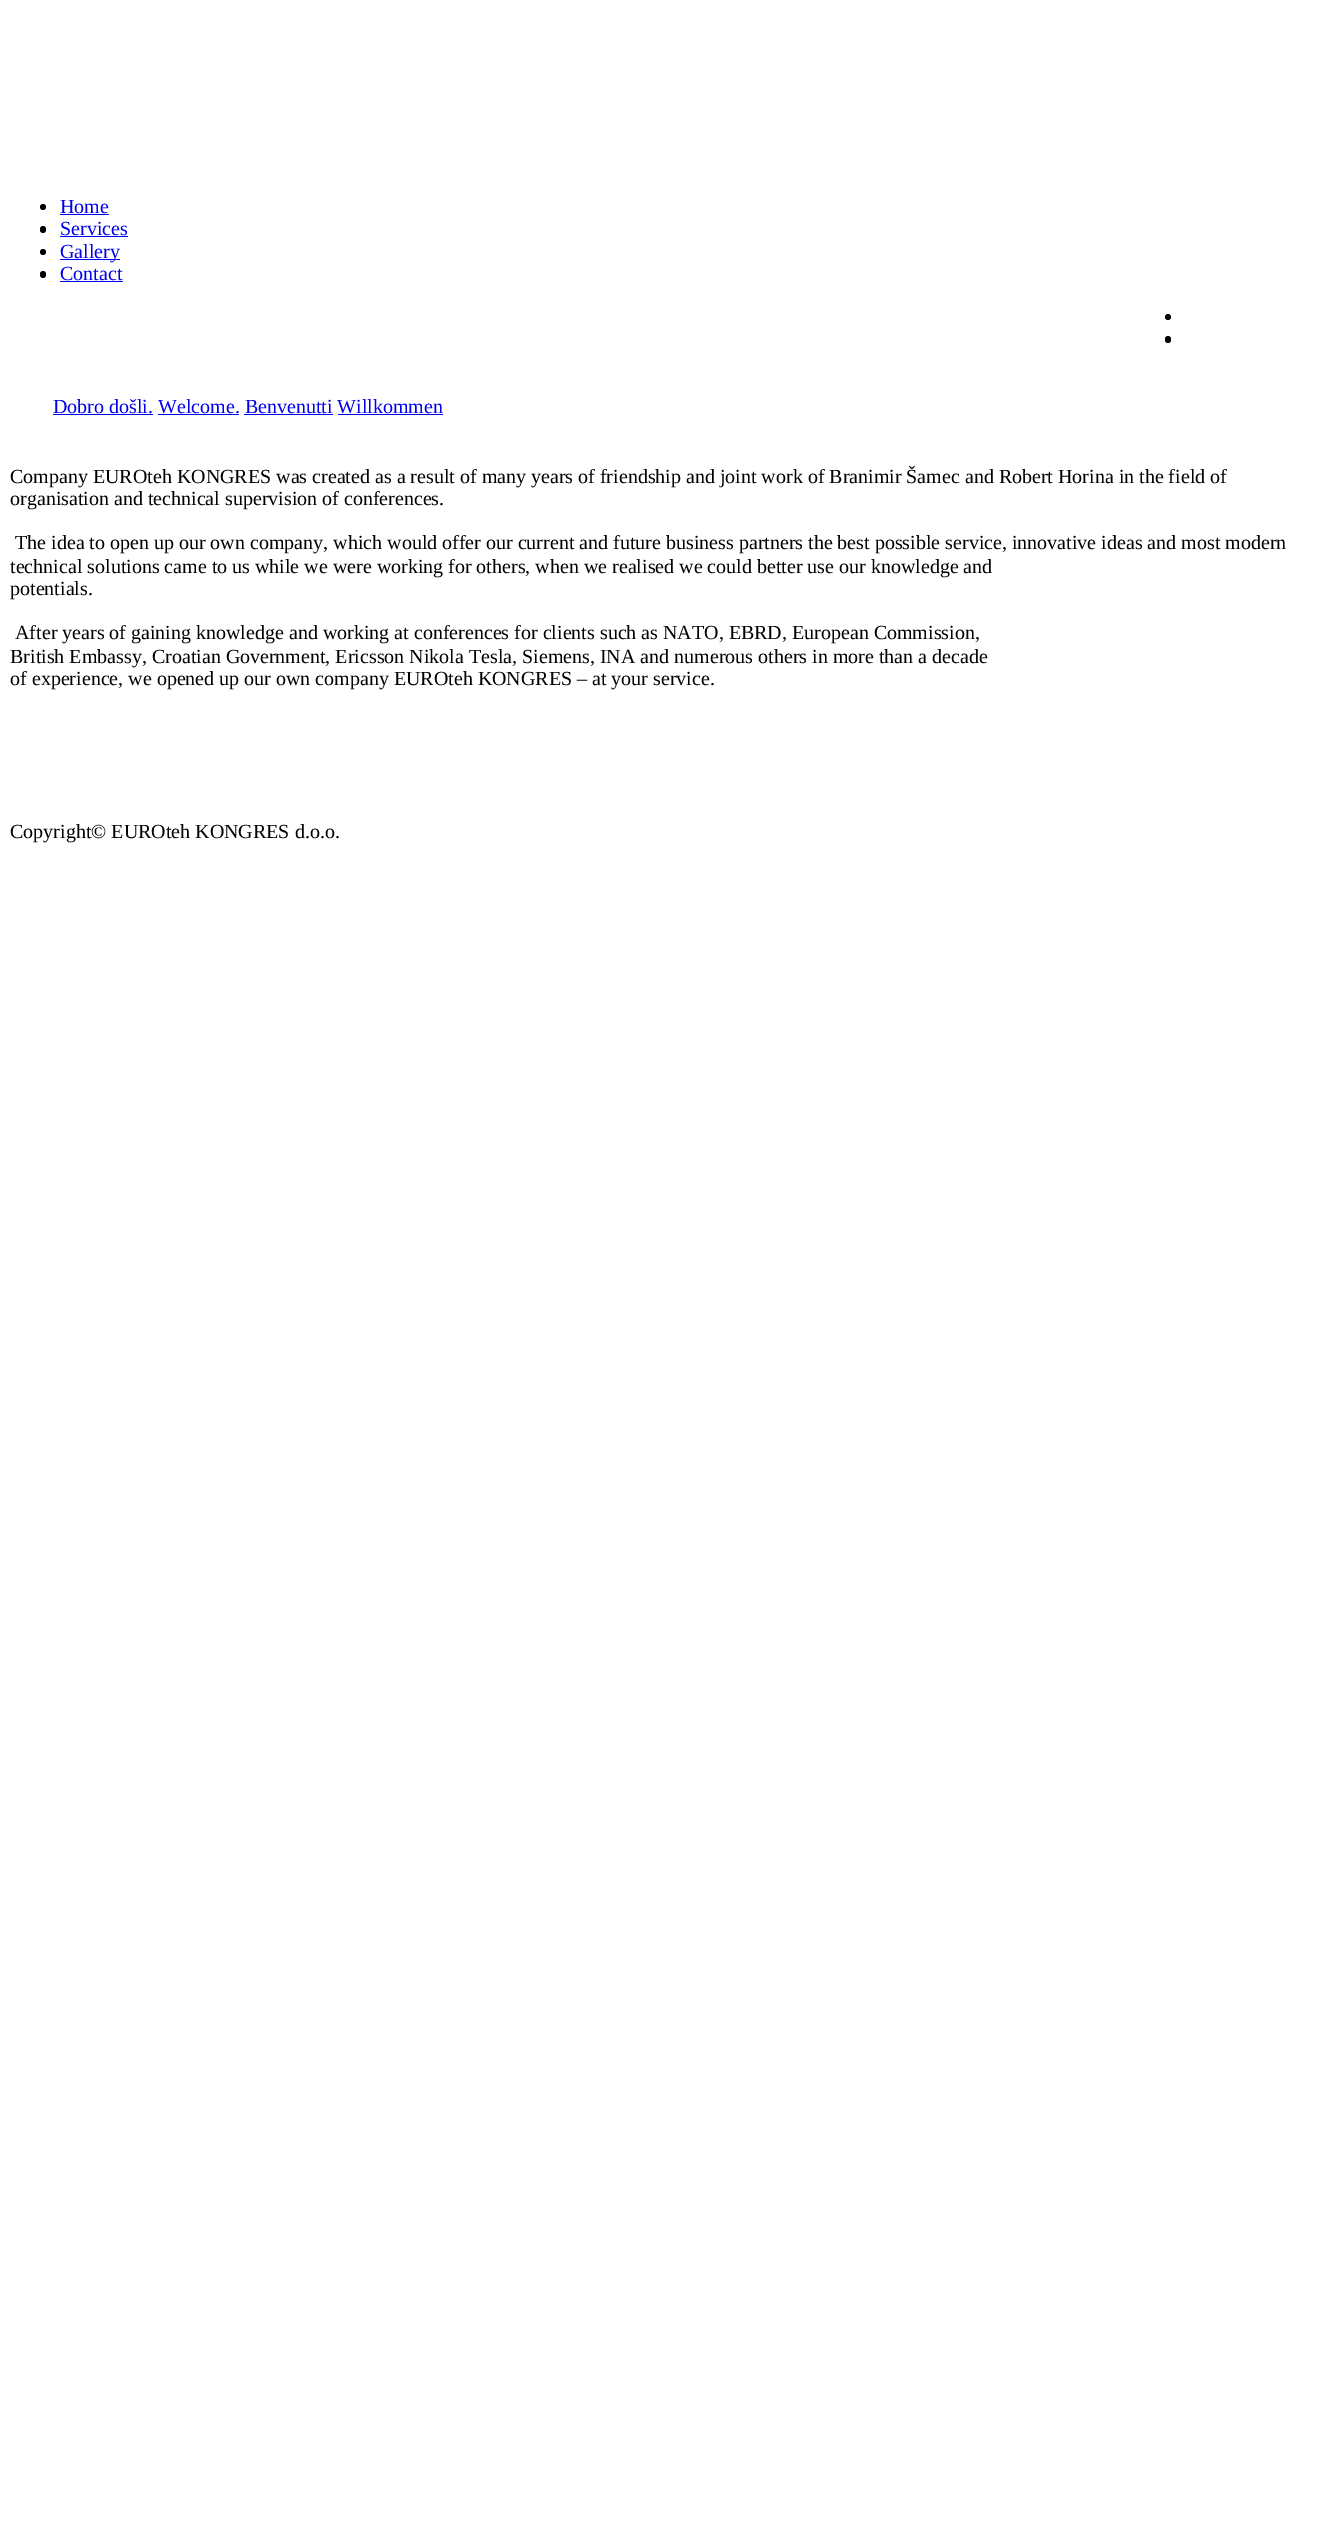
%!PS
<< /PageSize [1329 2542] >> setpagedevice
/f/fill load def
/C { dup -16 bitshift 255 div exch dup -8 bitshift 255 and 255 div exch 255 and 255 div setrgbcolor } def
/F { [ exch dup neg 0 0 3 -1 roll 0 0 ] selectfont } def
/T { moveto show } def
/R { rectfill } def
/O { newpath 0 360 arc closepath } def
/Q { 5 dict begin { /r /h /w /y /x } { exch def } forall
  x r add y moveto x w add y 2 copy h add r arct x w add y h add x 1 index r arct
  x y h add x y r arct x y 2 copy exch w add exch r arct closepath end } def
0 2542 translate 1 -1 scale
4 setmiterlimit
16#FFFFFF C
0 0 1329 2542 R
16#000000 C
43 207 3 O f
/LiberationSerif-Regular 20 F
16#0000EE C
(Home) 60 213 T
60 214 49 1 R
16#000000 C
40 226 6 7 3 Q f
16#0000EE C
(Services) 60 235 T
60 236 68 1 R
16#000000 C
43 252 3 O f
16#0000EE C
60 259 60 1 R
(Gallery) 60 258 T
16#000000 C
40 271 6 7 3 Q f
16#0000EE C
(Contact) 60 280 T
60 281 63 1 R
16#000000 C
1168 317 3 O f
1165 336 6 7 3 Q f
16#0000EE C
(Dobro došli. Welcome. Benvenutti Willkommen) 53 413 T
53 414 100 1 R
158 414 81 1 R
244 414 89 1 R
338 414 105 1 R
16#000000 C
(Company EUROteh KONGRES was created as a result of many years of friendship and joint work of Branimir Šamec and Robert Horina in the field of) 10 483 T
(organisation and technical supervision of conferences.) 10 505 T
(The idea to open up our own company, which would offer our current and future business partners the best possible service, innovative ideas and most modern) 15 549 T
(technical solutions came to us while we were working for others, when we realised we could better use our knowledge and) 10 573 T
(potentials.) 10 595 T
(After years of gaining knowledge and working at conferences for clients such as NATO, EBRD, European Commission,) 15 639 T
(British Embassy, Croatian Government, Ericsson Nikola Tesla, Siemens, INA and numerous others in more than a decade) 10 663 T
(of experience, we opened up our own company EUROteh KONGRES – at your service.) 10 685 T
(Copyright© EUROteh KONGRES d.o.o.) 10 838 T
showpage
